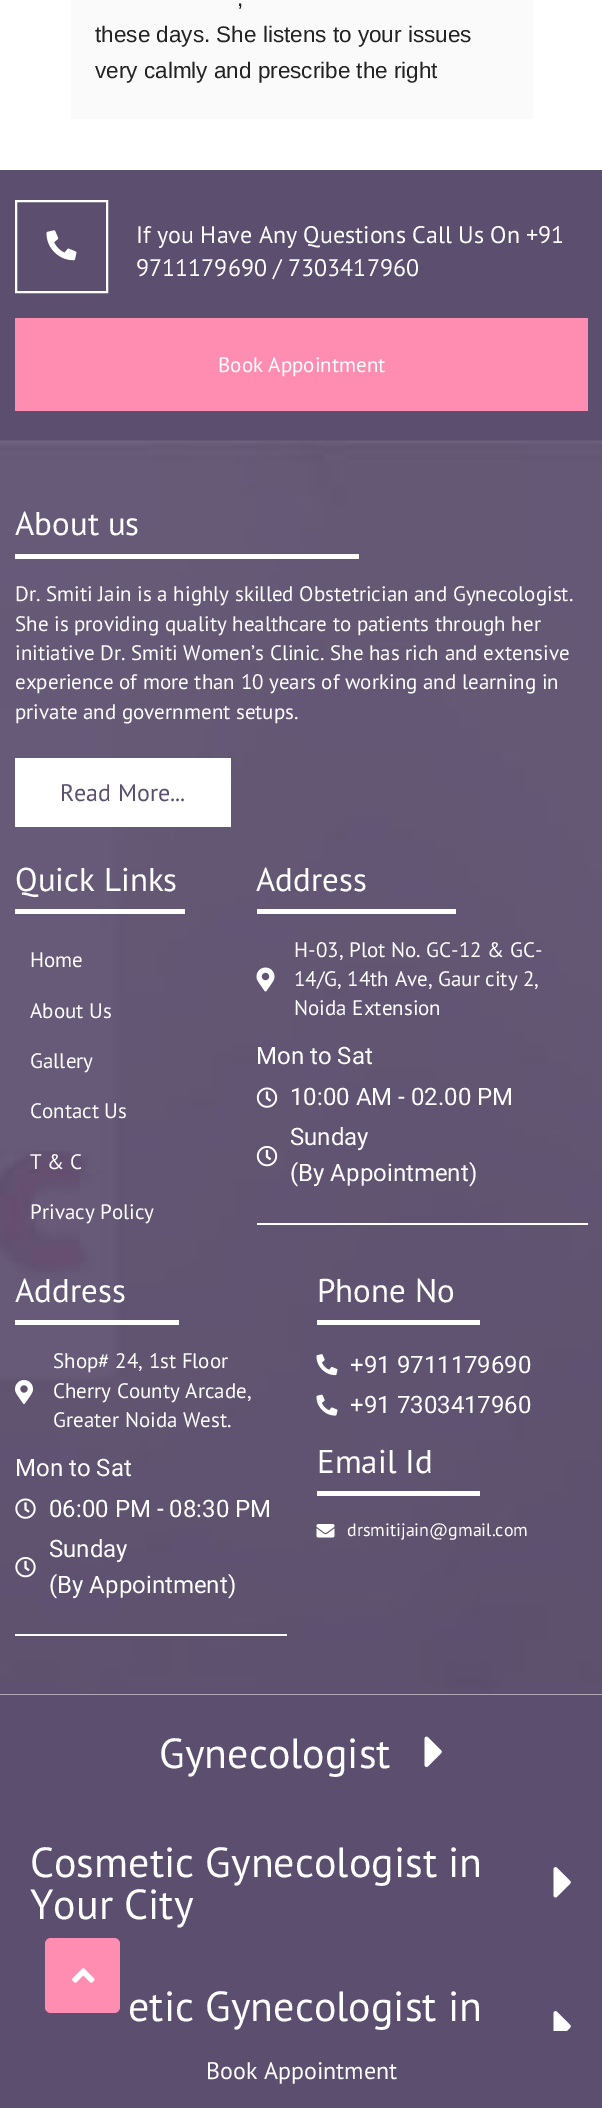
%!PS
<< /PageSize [602 2108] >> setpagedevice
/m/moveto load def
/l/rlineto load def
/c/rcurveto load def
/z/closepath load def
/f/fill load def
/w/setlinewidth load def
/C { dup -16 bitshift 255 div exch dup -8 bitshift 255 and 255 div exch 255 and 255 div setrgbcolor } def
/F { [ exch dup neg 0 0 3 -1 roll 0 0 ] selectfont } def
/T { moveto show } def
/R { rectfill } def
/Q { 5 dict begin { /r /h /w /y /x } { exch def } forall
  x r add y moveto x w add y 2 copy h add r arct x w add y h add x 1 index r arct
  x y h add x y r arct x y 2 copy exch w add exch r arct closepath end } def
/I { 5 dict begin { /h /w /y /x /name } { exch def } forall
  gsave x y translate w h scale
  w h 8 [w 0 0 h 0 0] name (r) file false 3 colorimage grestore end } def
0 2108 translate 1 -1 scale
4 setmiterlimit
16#FFFFFF C
0 0 602 2108 R
16#FAFAFA C
71 0 462 119 R
/LiberationSans-Regular 22.5 F
16#222222 C
(,) 237 6 T
(these days. She listens to your issues) 95 42 T
(very calmly and prescribe the right) 95 78 T
16#5B4E6E C
0 170 602 271 R
16#FFFFFF C
2 w
16 201 91 91 rectstroke
(1.rgb) 46 230 31 31 I
/PTSans-Regular 24 F
(If you Have Any Questions Call Us On +91) 136 243 T
(9711179690 / 7303417960) 136 276 T
16#FF8DB2 C
15 318 573 93 R
/PTSans-Regular 21 F
16#FFFFFF C
(Book Appointment) 218 372 T
(2.rgb) 0 440 602 1255 I
15 554 344 5 R
/PTSans-Regular 33 F
(About us) 15 535 T
/PTSans-Regular 21 F
(Dr. Smiti Jain is a highly skilled Obstetrician and Gynecologist.) 15 601 T
(She is providing quality healthcare to patients through her) 15 631 T
(initiative Dr. Smiti Women’s Clinic. She has rich and extensive) 15 660 T
(experience of more than 10 years of working and learning in) 15 689 T
(private and government setups.) 15 719 T
15 758 216 69 R
/PTSans-Regular 24 F
16#5B4E6E C
(Read More...) 60 801 T
16#FFFFFF C
15 909 170 5 R
/PTSans-Regular 33 F
(Quick Links) 15 891 T
/PTSans-Regular 21 F
(Home) 30 967 T
(About Us) 30 1018 T
(Gallery) 30 1068 T
(Contact Us) 30 1118 T
(T & C) 30 1169 T
(Privacy Policy) 30 1219 T
257 909 199 5 R
/PTSans-Regular 33 F
(Address) 256 891 T
(3.rgb) 256 967 19 25 I
/PTSans-Regular 21 F
(H-03, Plot No. GC-12 & GC-) 294 957 T
(14/G, 14th Ave, Gaur city 2,) 294 986 T
(Noida Extension) 294 1015 T
257 1223 331 2 R
/Roboto-Regular 24 F
(Mon to Sat) 256 1064 T
(4.rgb) 256 1087 22 21 I
(10:00 AM - 02.00 PM) 290 1105 T
(5.rgb) 256 1146 22 21 I
(Sunday) 290 1145 T
(\(By Appointment\)) 290 1181 T
15 1320 164 5 R
/PTSans-Regular 33 F
(Address) 15 1302 T
(6.rgb) 15 1380 18 24 I
/PTSans-Regular 21 F
(Shop# 24, 1st Floor) 53 1368 T
(Cherry County Arcade,) 53 1398 T
(Greater Noida West.) 53 1427 T
15 1634 272 2 R
/Roboto-Regular 24 F
(Mon to Sat) 15 1476 T
(7.rgb) 15 1498 21 21 I
(06:00 PM - 08:30 PM) 49 1517 T
(8.rgb) 15 1557 21 21 I
(Sunday) 49 1557 T
(\(By Appointment\)) 49 1593 T
317 1320 163 5 R
/PTSans-Regular 33 F
(Phone No) 317 1302 T
(9.rgb) 316 1354 22 22 I
/Roboto-Regular 24 F
(+91 9711179690) 350 1373 T
(10.rgb) 316 1394 22 22 I
(+91 7303417960) 350 1413 T
317 1491 163 5 R
/PTSans-Regular 33 F
(Email Id) 317 1473 T
(11.rgb) 316 1524 19 14 I
/PTSans-Regular 18 F
(drsmitijain@gmail.com) 347 1536 T
16#5B4E6E C
0 1695 602 342 R
/PTSans-Regular 42 F
16#FFFFFF C
(Gynecologist) 159 1768 T
(12.rgb) 424 1736 18 32 I
(Cosmetic Gynecologist in) 30 1877 T
(Your City) 30 1919 T
(13.rgb) 553 1867 18 31 I
(etic Gynecologist in) 128 2021 T
(14.rgb) 553 2011 18 20 I
16#FF8DB2 C
45 1938 75 75 6 Q f
(15.rgb) 72 1968 23 15 I
16#5B4E6E C
6 2031 m 591 0 l 3.5 0 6 2.5 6 6 c 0 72 l -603 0 l 0 -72 l 0 -3.5 2.5 -6 6 -6 c z f
/PTSans-Regular 24 F
16#FFFFFF C
(Book Appointment) 206 2079 T
showpage
